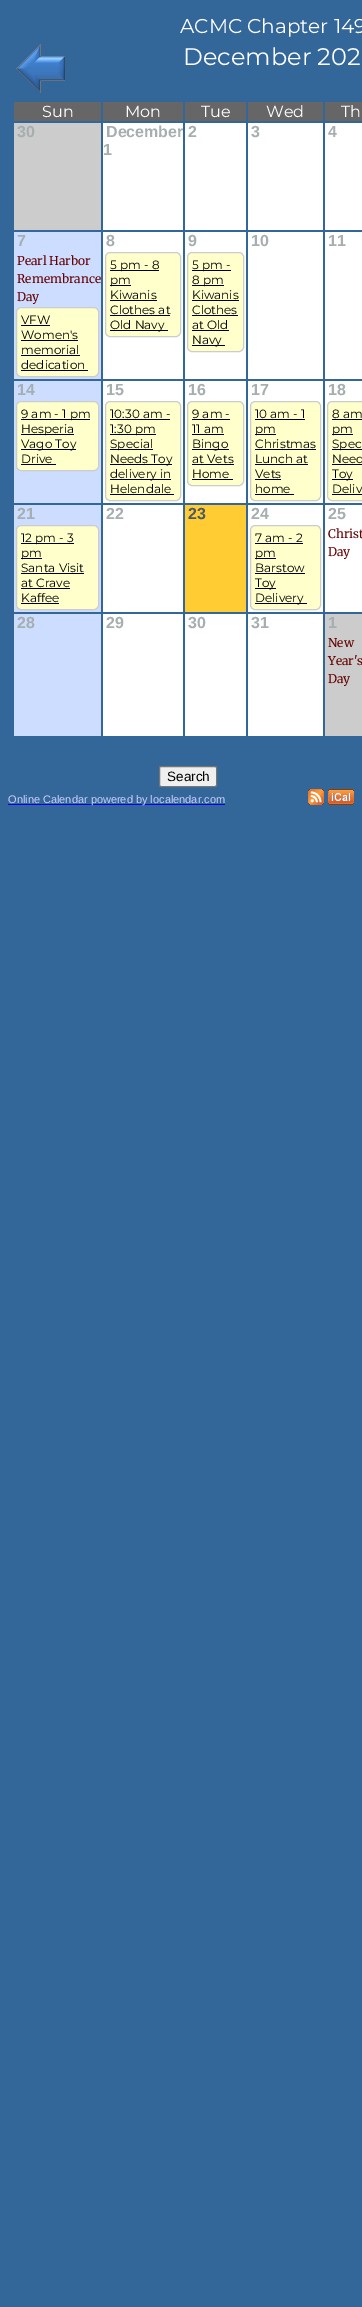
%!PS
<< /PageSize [362 2307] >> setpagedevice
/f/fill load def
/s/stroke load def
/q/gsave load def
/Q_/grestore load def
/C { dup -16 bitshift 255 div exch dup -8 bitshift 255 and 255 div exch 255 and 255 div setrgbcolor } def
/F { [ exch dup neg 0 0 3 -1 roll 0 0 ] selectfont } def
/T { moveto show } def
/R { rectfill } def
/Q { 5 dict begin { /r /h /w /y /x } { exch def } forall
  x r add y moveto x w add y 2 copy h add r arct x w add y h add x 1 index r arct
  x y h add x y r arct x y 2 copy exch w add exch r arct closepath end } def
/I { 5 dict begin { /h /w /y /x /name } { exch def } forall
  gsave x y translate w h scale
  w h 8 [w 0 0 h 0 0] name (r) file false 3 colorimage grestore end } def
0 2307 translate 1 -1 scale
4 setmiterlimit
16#336699 C
0 0 362 2307 R
/Montserrat-Thin 20 F
16#FFFFFF C
(ACMC Chapter 149) 180 33 T
(1.rgb) 16 44 49 49 I
/Montserrat-Thin 24 F
(December 202) 183 65 T
16#666666 C
14 102 87 19 R
/Montserrat-Thin 16 F
16#FFFFFF C
(Sun) 42 117 T
16#666666 C
103 102 80 19 R
16#FFFFFF C
(Mon) 125 117 T
16#666666 C
185 102 61 19 R
16#FFFFFF C
(Tue) 201 117 T
16#666666 C
248 102 75 19 R
16#FFFFFF C
(Wed) 266 117 T
16#666666 C
325 102 37 19 R
16#FFFFFF C
(Th) 341 117 T
16#CCCCCC C
14 123 87 107 R
/LiberationSans-Bold 16 F
16#A6AEB0 C
(30) 17 137 T
16#FFFFFF C
103 123 80 107 R
16#A6AEB0 C
(December) 106 137 T
(1) 103 155 T
16#FFFFFF C
185 123 61 107 R
16#A6AEB0 C
(2) 188 137 T
16#FFFFFF C
248 123 75 107 R
16#A6AEB0 C
(3) 251 137 T
16#FFFFFF C
325 123 37 107 R
16#A6AEB0 C
(4) 328 137 T
16#CCDDFF C
14 232 87 147 R
16#A6AEB0 C
(7) 17 246 T
/Merriweather-Light 12 F
16#660000 C
(Pearl Harbor) 17 265 T
(Remembrance) 17 283 T
(Day) 17 301 T
16#FFFFCC C
16.5 307.5 82 69 4.5 Q q f Q_
16#CCCCCC C
s
/Montserrat-Thin 12 F
16#000000 C
(VFW) 21 324 T
21 325 29 1 R
(Women's) 21 339 T
21 340 57 1 R
(memorial) 21 354 T
21 355 59 1 R
(dedication) 21 369 T
21 370 67 1 R
16#FFFFFF C
103 232 80 147 R
/LiberationSans-Bold 16 F
16#A6AEB0 C
(8) 106 246 T
16#FFFFCC C
105.5 252.5 75 84 4.5 Q q f Q_
16#CCCCCC C
s
16#000000 C
110 270 49 1 R
/Montserrat-Thin 12 F
(5 pm - 8) 110 269 T
110 285 21 1 R
(pm) 110 284 T
(Kiwanis) 110 299 T
110 300 47 1 R
(Clothes at) 110 314 T
110 315 60 1 R
110 330 58 1 R
(Old Navy) 110 329 T
16#FFFFFF C
185 232 61 147 R
/LiberationSans-Bold 16 F
16#A6AEB0 C
(9) 188 246 T
16#FFFFCC C
187.5 252.5 56 99 4.5 Q q f Q_
16#CCCCCC C
s
16#000000 C
192 270 39 1 R
/Montserrat-Thin 12 F
(5 pm -) 192 269 T
192 285 32 1 R
(8 pm) 192 284 T
(Kiwanis) 192 299 T
192 300 47 1 R
(Clothes) 192 314 T
192 315 46 1 R
(at Old) 192 329 T
192 330 37 1 R
192 345 33 1 R
(Navy) 192 344 T
16#FFFFFF C
248 232 75 147 R
/LiberationSans-Bold 16 F
16#A6AEB0 C
(10) 251 246 T
16#FFFFFF C
325 232 37 147 R
16#A6AEB0 C
(11) 328 246 T
16#CCDDFF C
14 381 87 122 R
16#A6AEB0 C
(14) 17 395 T
16#FFFFCC C
16.5 401.5 82 69 4.5 Q q f Q_
16#CCCCCC C
s
16#000000 C
21 419 69 1 R
/Montserrat-Thin 12 F
(9 am - 1 pm) 21 418 T
21 434 53 1 R
(Hesperia) 21 433 T
21 449 55 1 R
(Vago Toy) 21 448 T
(Drive) 21 463 T
21 464 35 1 R
16#FFFFFF C
103 381 80 122 R
/LiberationSans-Bold 16 F
16#A6AEB0 C
(15) 106 395 T
16#FFFFCC C
105.5 401.5 75 99 4.5 Q q f Q_
16#CCCCCC C
s
/Montserrat-Thin 12 F
16#000000 C
(10:30 am -) 110 418 T
110 419 60 1 R
110 434 46 1 R
(1:30 pm) 110 433 T
110 449 43 1 R
(Special) 110 448 T
110 464 62 1 R
(Needs Toy) 110 463 T
110 479 61 1 R
(delivery in) 110 478 T
(Helendale) 110 493 T
110 494 64 1 R
16#FFFFFF C
185 381 61 122 R
/LiberationSans-Bold 16 F
16#A6AEB0 C
(16) 188 395 T
16#FFFFCC C
187.5 401.5 56 84 4.5 Q q f Q_
16#CCCCCC C
s
/Montserrat-Thin 12 F
16#000000 C
(9 am -) 192 418 T
192 419 38 1 R
(11 am) 192 433 T
192 434 32 1 R
192 449 37 1 R
(Bingo) 192 448 T
(at Vets) 192 463 T
192 464 42 1 R
(Home) 192 478 T
192 479 41 1 R
16#FFFFFF C
248 381 75 122 R
/LiberationSans-Bold 16 F
16#A6AEB0 C
(17) 251 395 T
16#FFFFCC C
250.5 401.5 70 99 4.5 Q q f Q_
16#CCCCCC C
s
/Montserrat-Thin 12 F
16#000000 C
(10 am - 1) 255 418 T
255 419 50 1 R
255 434 21 1 R
(pm) 255 433 T
(Christmas) 255 448 T
255 449 61 1 R
(Lunch at) 255 463 T
255 464 53 1 R
(Vets) 255 478 T
255 479 26 1 R
(home) 255 493 T
255 494 39 1 R
16#FFFFFF C
325 381 37 122 R
/LiberationSans-Bold 16 F
16#A6AEB0 C
(18) 328 395 T
16#FFFFCC C
327.5 401.5 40 99 4.5 Q q f Q_
16#CCCCCC C
s
/Montserrat-Thin 12 F
16#000000 C
(8 am) 332 418 T
332 419 30 1 R
332 434 21 1 R
(pm) 332 433 T
332 449 30 1 R
(Spec) 332 448 T
(Need) 332 463 T
332 464 30 1 R
332 479 21 1 R
(Toy) 332 478 T
(Deliv) 332 493 T
332 494 30 1 R
16#CCDDFF C
14 505 87 107 R
/LiberationSans-Bold 16 F
16#A6AEB0 C
(21) 17 519 T
16#FFFFCC C
16.5 525.5 82 84 4.5 Q q f Q_
16#CCCCCC C
s
16#000000 C
21 543 53 1 R
/Montserrat-Thin 12 F
(12 pm - 3) 21 542 T
21 558 21 1 R
(pm) 21 557 T
(Santa Visit) 21 572 T
21 573 63 1 R
(at Crave) 21 587 T
21 588 49 1 R
(Kaffee) 21 602 T
21 603 38 1 R
16#FFFFFF C
103 505 80 107 R
/LiberationSans-Bold 16 F
16#A6AEB0 C
(22) 106 519 T
16#FFCC33 C
185 505 61 107 R
16#4E5865 C
(23) 188 519 T
16#FFFFFF C
248 505 75 107 R
16#A6AEB0 C
(24) 251 519 T
16#FFFFCC C
250.5 525.5 70 84 4.5 Q q f Q_
16#CCCCCC C
s
/Montserrat-Thin 12 F
16#000000 C
(7 am - 2) 255 542 T
255 543 48 1 R
255 558 21 1 R
(pm) 255 557 T
(Barstow) 255 572 T
255 573 50 1 R
255 588 21 1 R
(Toy) 255 587 T
255 603 52 1 R
(Delivery) 255 602 T
16#FFFFFF C
325 505 37 107 R
/LiberationSans-Bold 16 F
16#A6AEB0 C
(25) 328 519 T
/Merriweather-Light 12 F
16#660000 C
(Christ) 328 538 T
(Day) 328 556 T
16#CCDDFF C
14 614 87 122 R
/LiberationSans-Bold 16 F
16#A6AEB0 C
(28) 17 628 T
16#FFFFFF C
103 614 80 122 R
16#A6AEB0 C
(29) 106 628 T
16#FFFFFF C
185 614 61 122 R
16#A6AEB0 C
(30) 188 628 T
16#FFFFFF C
248 614 75 122 R
16#A6AEB0 C
(31) 251 628 T
16#CCCCCC C
325 614 37 122 R
16#A6AEB0 C
(1) 328 628 T
/Merriweather-Light 12 F
16#660000 C
(New) 328 647 T
(Year's) 328 665 T
(Day) 328 683 T
16#EFEFEF C
159.5 766.5 57 20 1.5 Q q f Q_
16#767676 C
s
/LiberationSans-Regular 13.5 F
16#000000 C
(Search) 167 781 T
16#0000EE C
8 804 217 1 R
/LiberationSans-Regular 11 F
16#CCCFFF C
(Online Calendar powered by localendar.com) 8 803 T
(2.rgb) 308 789 16 16 I
(3.rgb) 328 789 26 16 I
showpage
